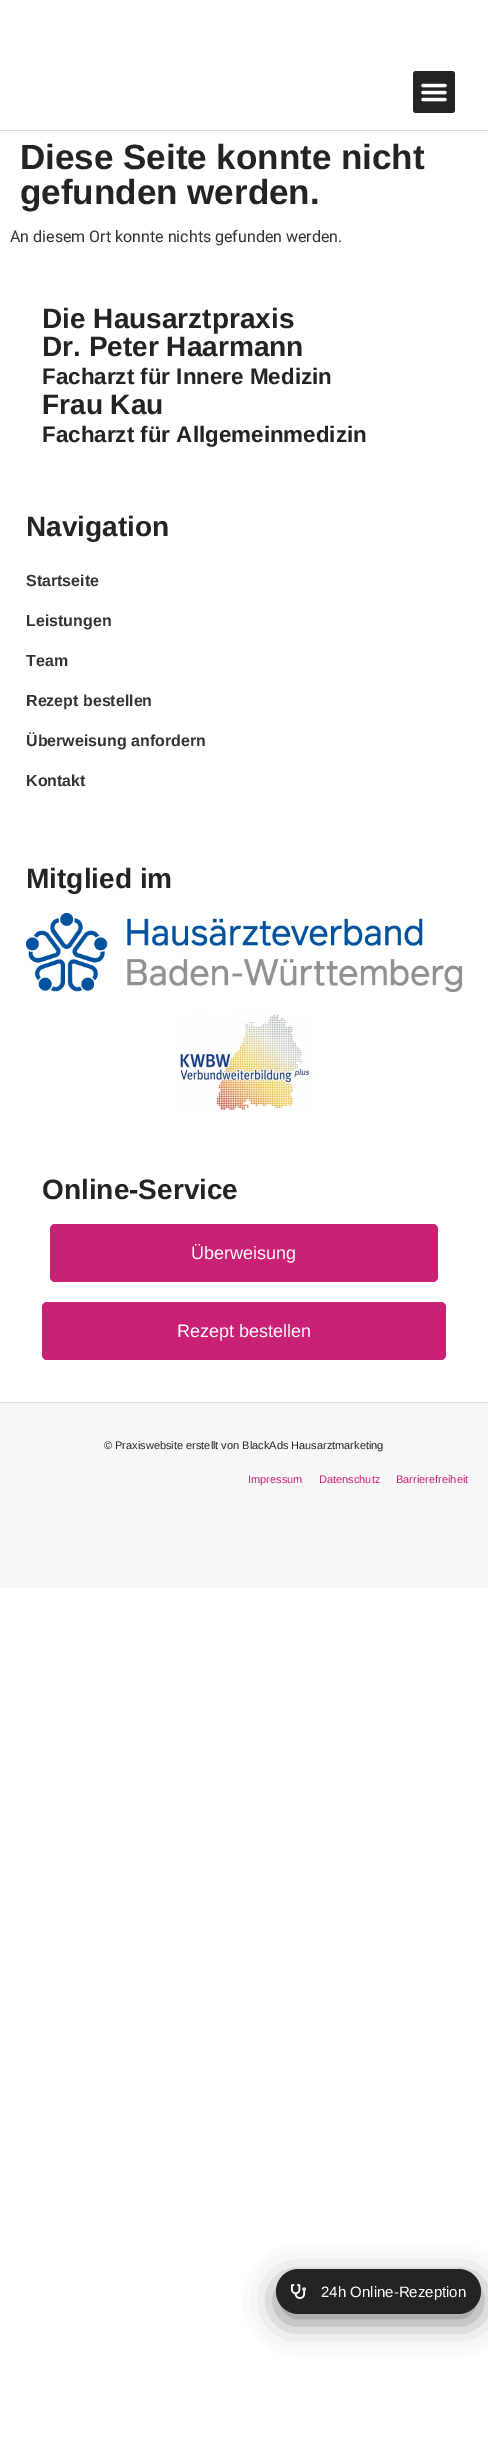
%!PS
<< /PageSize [488 2440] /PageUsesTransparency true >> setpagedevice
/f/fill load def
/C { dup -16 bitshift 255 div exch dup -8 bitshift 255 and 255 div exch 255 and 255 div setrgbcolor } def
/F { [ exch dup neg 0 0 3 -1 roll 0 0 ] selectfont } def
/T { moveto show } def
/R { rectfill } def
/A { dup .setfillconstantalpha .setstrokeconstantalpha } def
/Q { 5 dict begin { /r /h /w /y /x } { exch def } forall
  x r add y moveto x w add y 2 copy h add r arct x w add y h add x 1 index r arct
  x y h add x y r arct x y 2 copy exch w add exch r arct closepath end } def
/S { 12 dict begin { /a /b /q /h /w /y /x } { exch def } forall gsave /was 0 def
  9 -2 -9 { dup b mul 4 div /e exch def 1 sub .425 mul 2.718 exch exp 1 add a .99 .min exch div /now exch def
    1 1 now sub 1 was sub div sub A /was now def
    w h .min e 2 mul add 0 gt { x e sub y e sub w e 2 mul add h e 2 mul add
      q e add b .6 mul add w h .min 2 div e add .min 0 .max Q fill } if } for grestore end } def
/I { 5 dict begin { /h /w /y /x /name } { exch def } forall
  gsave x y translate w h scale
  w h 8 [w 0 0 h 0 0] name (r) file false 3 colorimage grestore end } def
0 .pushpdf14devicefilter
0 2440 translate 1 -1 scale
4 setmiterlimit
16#FFFFFF C
0 0 488 2440 R
/LiberationSans-Bold 35 F
16#232323 C
(Diese Seite konnte nicht) 20 169 T
(gefunden werden.) 20 204 T
/Roboto-Regular 16 F
16#333333 C
(An diesem Ort konnte nichts gefunden werden.) 10 242 T
16#DADADA C
0 1402 488 1 R
/LiberationSans-Bold 28 F
16#232323 C
(Die Hausarztpraxis) 42 328 T
(Dr. Peter Haarmann) 42 356 T
/LiberationSans-Bold 22.4 F
(Facharzt für Innere Medizin) 42 384 T
/LiberationSans-Bold 28 F
(Frau Kau) 42 414 T
/LiberationSans-Bold 22.4 F
(Facharzt für Allgemeinmedizin) 42 442 T
/LiberationSans-Bold 28 F
(Navigation) 26 536 T
/LiberationSans-Bold 16 F
16#333333 C
(Startseite) 26 586 T
(Leistungen) 26 626 T
(Team) 26 666 T
(Rezept bestellen) 26 706 T
(Überweisung anfordern) 26 746 T
(Kontakt) 26 786 T
/LiberationSans-Bold 28 F
16#232323 C
(Mitglied im) 26 888 T
(1.rgb) 26 913 436 79 I
(2.rgb) 180 1014 130 96 I
(Online-Service) 42 1199 T
16#C82176 C
50 1224 388 58 5 Q f
/LiberationSans-Regular 18 F
16#FFFFFF C
(Überweisung) 191 1259 T
16#C82176 C
42 1302 404 58 5 Q f
16#FFFFFF C
(Rezept bestellen) 177 1337 T
16#F7F7F7 C
0 1403 488 185 R
/LiberationSans-Regular 11 F
16#232323 C
(© Praxiswebsite erstellt von BlackAds Hausarztmarketing) 104 1449 T
16#C82176 C
(Impressum) 248 1483 T
(Datenschutz) 319 1483 T
(Barrierefreiheit) 396 1483 T
16#DADADA C
0 130 488 1 R
16#232323 C
413 71 42 42 3 Q f
(3.rgb) 421 83 26 19 I
16#1B1B1B C
276 2278 205 45 22.5 15 .5 S
16#232323 C
276 2269 205 45 22.5 Q f
(4.rgb) 291 2284 15 15 I
/LiberationSans-Regular 15 F
16#FFFFFF C
(24h Online-Rezeption) 321 2297 T
.poppdf14devicefilter showpage
